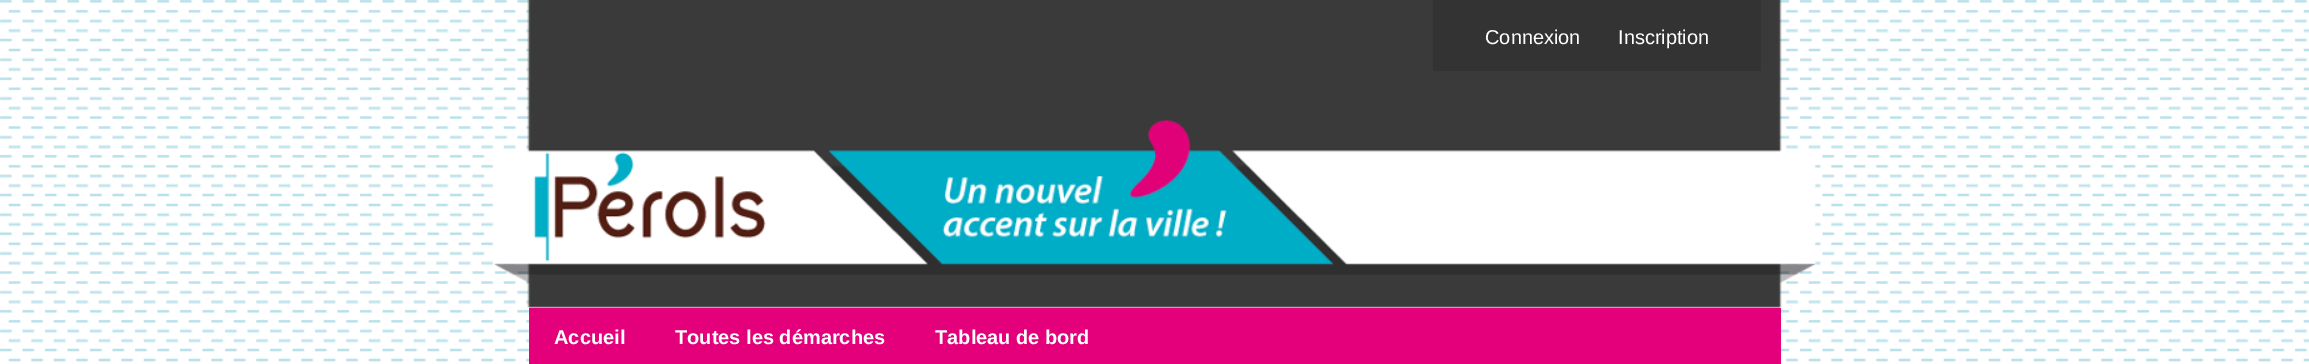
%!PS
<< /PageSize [2309 364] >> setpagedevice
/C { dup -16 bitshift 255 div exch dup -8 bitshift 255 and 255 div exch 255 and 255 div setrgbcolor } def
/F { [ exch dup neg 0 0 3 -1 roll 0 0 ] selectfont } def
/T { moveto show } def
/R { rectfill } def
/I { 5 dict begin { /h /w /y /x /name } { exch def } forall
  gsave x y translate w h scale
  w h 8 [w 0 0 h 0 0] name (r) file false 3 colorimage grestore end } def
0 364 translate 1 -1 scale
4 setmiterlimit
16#FFFFFF C
0 0 2309 364 R
(1.rgb) 0 0 2309 362 I
(2.rgb) 494 0 1323 308 I
16#333333 C
1433 0 328 71 R
/LiberationSans-Regular 20 F
16#FFFFFF C
(Connexion) 1485 44 T
(Inscription) 1618 44 T
16#E3007A C
529 308 1252 56 R
/LiberationSans-Bold 20 F
16#FFFFFF C
(Accueil) 554 344 T
(Toutes les démarches) 675 344 T
(Tableau de bord) 935 344 T
showpage
